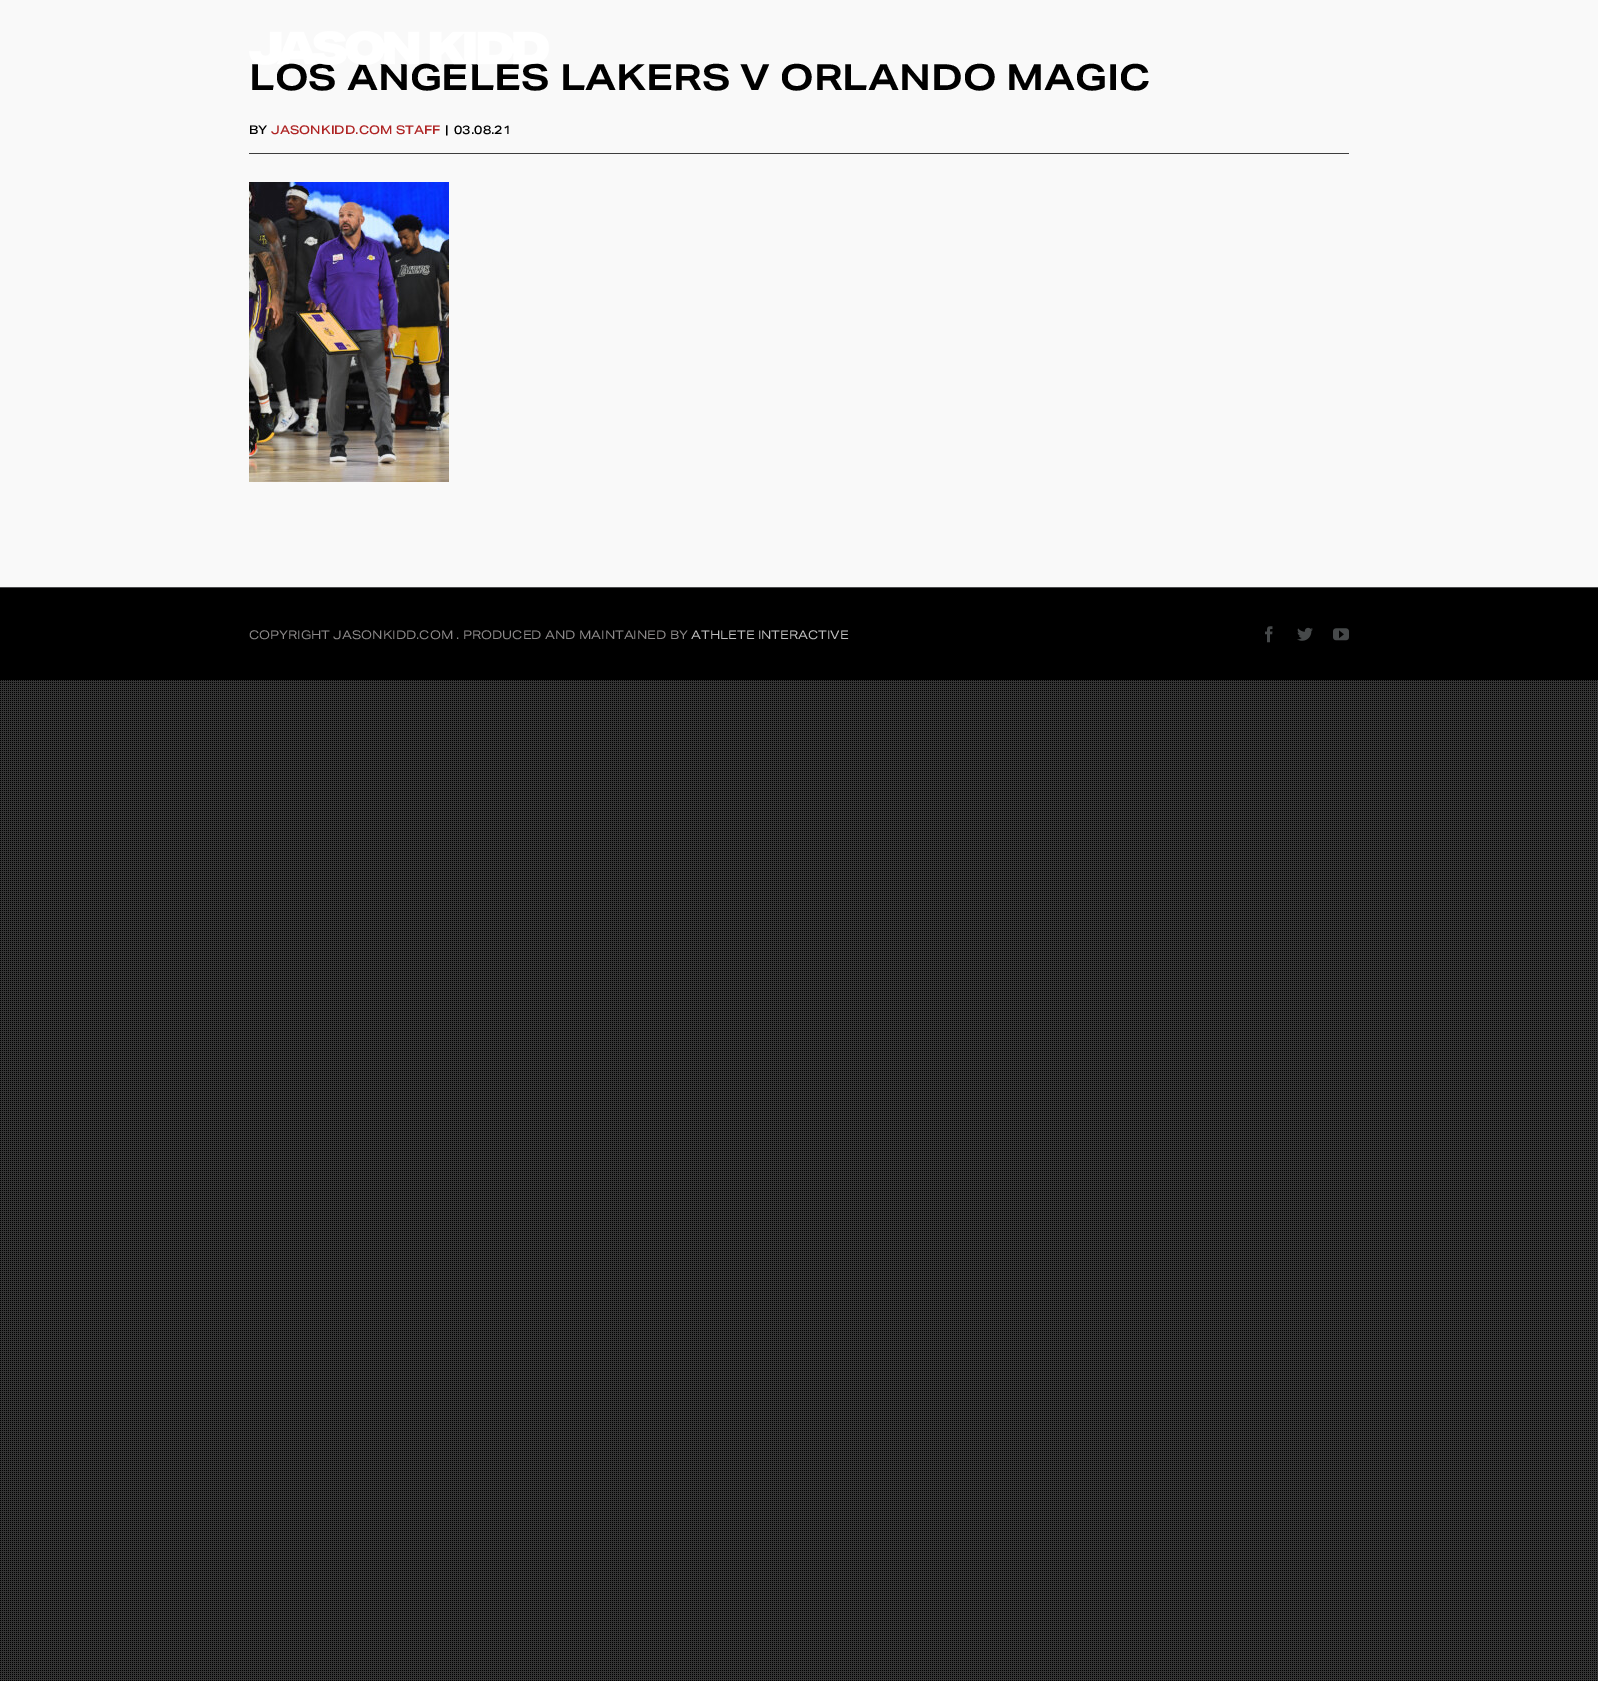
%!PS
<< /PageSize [1598 1681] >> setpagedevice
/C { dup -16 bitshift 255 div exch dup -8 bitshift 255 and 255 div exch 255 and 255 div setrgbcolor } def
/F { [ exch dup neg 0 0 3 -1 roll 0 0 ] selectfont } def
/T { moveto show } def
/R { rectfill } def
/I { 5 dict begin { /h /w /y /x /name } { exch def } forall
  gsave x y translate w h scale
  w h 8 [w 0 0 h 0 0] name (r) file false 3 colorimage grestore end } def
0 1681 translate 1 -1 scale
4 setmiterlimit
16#FFFFFF C
0 0 1598 1681 R
(1.rgb) 0 680 1598 1001 I
16#F9F9F9 C
0 0 1598 587 R
/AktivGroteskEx-Bold 36 F
16#000000 C
(LOS ANGELES LAKERS V ORLANDO MAGIC) 249 90 T
(2.rgb) 249 31 300 34 I
16#3E3E3E C
249 153 1100 1 R
/AktivGroteskEx-Medium 12 F
16#000000 C
(BY) 249 134 T
16#AF2424 C
(JASONKIDD.COM STAFF) 271 134 T
16#000000 C
(|) 445 134 T
(03.08.21) 454 134 T
(3.rgb) 249 182 200 300 I
0 588 1598 92 R
16#4B4C4D C
0 587 1598 1 R
/AktivGroteskEx-Regular 12 F
16#8C8989 C
(COPYRIGHT JASONKIDD.COM . PRODUCED AND MAINTAINED BY) 249 639 T
16#BFBFBF C
(ATHLETE INTERACTIVE) 691 639 T
(4.rgb) 1265 626 8 17 I
(5.rgb) 1297 627 16 14 I
(6.rgb) 1333 628 16 13 I
showpage
